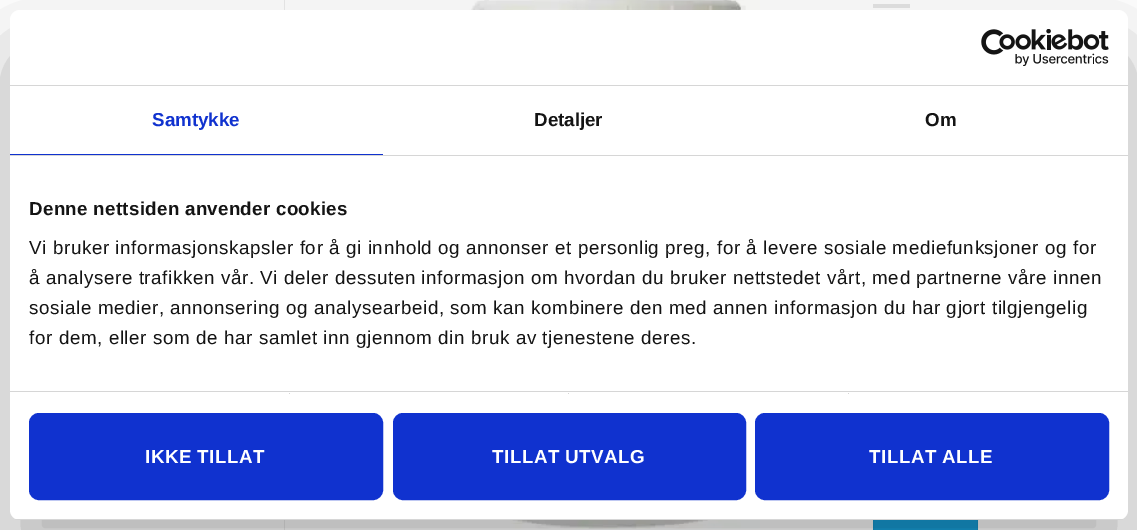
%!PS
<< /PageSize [1137 530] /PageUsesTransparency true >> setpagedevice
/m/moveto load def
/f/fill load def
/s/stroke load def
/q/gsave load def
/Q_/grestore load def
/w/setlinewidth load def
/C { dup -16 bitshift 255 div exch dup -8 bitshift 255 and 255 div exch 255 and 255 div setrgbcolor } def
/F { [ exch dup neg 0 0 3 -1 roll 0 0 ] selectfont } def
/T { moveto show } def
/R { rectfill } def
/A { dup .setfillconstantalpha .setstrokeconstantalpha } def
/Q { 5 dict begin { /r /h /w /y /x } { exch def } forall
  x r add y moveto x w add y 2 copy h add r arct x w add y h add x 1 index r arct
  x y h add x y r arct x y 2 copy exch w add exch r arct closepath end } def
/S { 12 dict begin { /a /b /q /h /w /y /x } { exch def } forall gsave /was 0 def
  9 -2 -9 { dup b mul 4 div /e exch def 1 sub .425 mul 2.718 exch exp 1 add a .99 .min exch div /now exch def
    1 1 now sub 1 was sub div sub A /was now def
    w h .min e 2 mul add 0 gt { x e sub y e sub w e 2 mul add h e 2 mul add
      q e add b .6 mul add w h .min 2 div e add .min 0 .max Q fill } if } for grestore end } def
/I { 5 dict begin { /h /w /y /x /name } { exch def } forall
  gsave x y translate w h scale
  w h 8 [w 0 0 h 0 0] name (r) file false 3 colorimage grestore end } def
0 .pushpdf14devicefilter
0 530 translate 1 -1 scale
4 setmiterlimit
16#FFFFFF C
0 0 1137 530 R
16#ECECEC C
284 0 1 530 R
(1.rgb) 462 0 313 529 I
16#E6E6E6 C
873 4 37 4 R
16#15A0DA C
873 520 105 10 R
0.05 A
16#000000 C
873.5 494.5 104 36 rectstroke
1 A
10 50 1118 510 10 42.5 .3 S
16#FFFFFF C
10 10 1118 510 10 Q f
16#D6D6D6 C
10 85 1118 1 R
(2.rgb) 981 29 128 37 I
10 155 1118 1 R
16#1032CF C
10 154 373 1 R
/LiberationSans-Bold 18.75 F
(Samtykke) 152 126 T
16#141414 C
(Detaljer) 534 126 T
(Om) 925 126 T
16#D6D6D6 C
10 391 1118 1 R
16#141414 C
29 215 m .3 0 (Denne nettsiden anvender cookies) ashow
/LiberationSans-Regular 18.75 F
29 254 m .62 0 (Vi bruker informasjonskapsler for å gi innhold og annonser et personlig preg, for å levere sosiale mediefunksjoner og for) ashow
29 284 m .62 0 (å analysere trafikken vår. Vi deler dessuten informasjon om hvordan du bruker nettstedet vårt, med partnerne våre innen) ashow
29 314 m .62 0 (sosiale medier, annonsering og analysearbeid, som kan kombinere den med annen informasjon du har gjort tilgjengelig) ashow
29 344 m .62 0 (for dem, eller som de har samlet inn gjennom din bruk av tjenestene deres.) ashow
16#D6D6D6 C
289 393 1 1 R
568 393 1 1 R
848 393 1 1 R
q
10 10 1118 510 10 Q clip newpath
10 519 1118 1 R
Q_
16#1032CF C
30.5 414.5 351 84 8.5 Q q f Q_
3 w
s
/LiberationSans-Bold 18.75 F
16#FFFFFF C
145 463 m .5 0 (IKKE TILLAT) ashow
16#1032CF C
394.5 414.5 350 84 8.5 Q q f Q_
s
16#FFFFFF C
492 463 m .5 0 (TILLAT UTVALG) ashow
16#1032CF C
756.5 414.5 351 84 8.5 Q q f Q_
s
16#FFFFFF C
869 463 m .5 0 (TILLAT ALLE) ashow
.poppdf14devicefilter showpage
